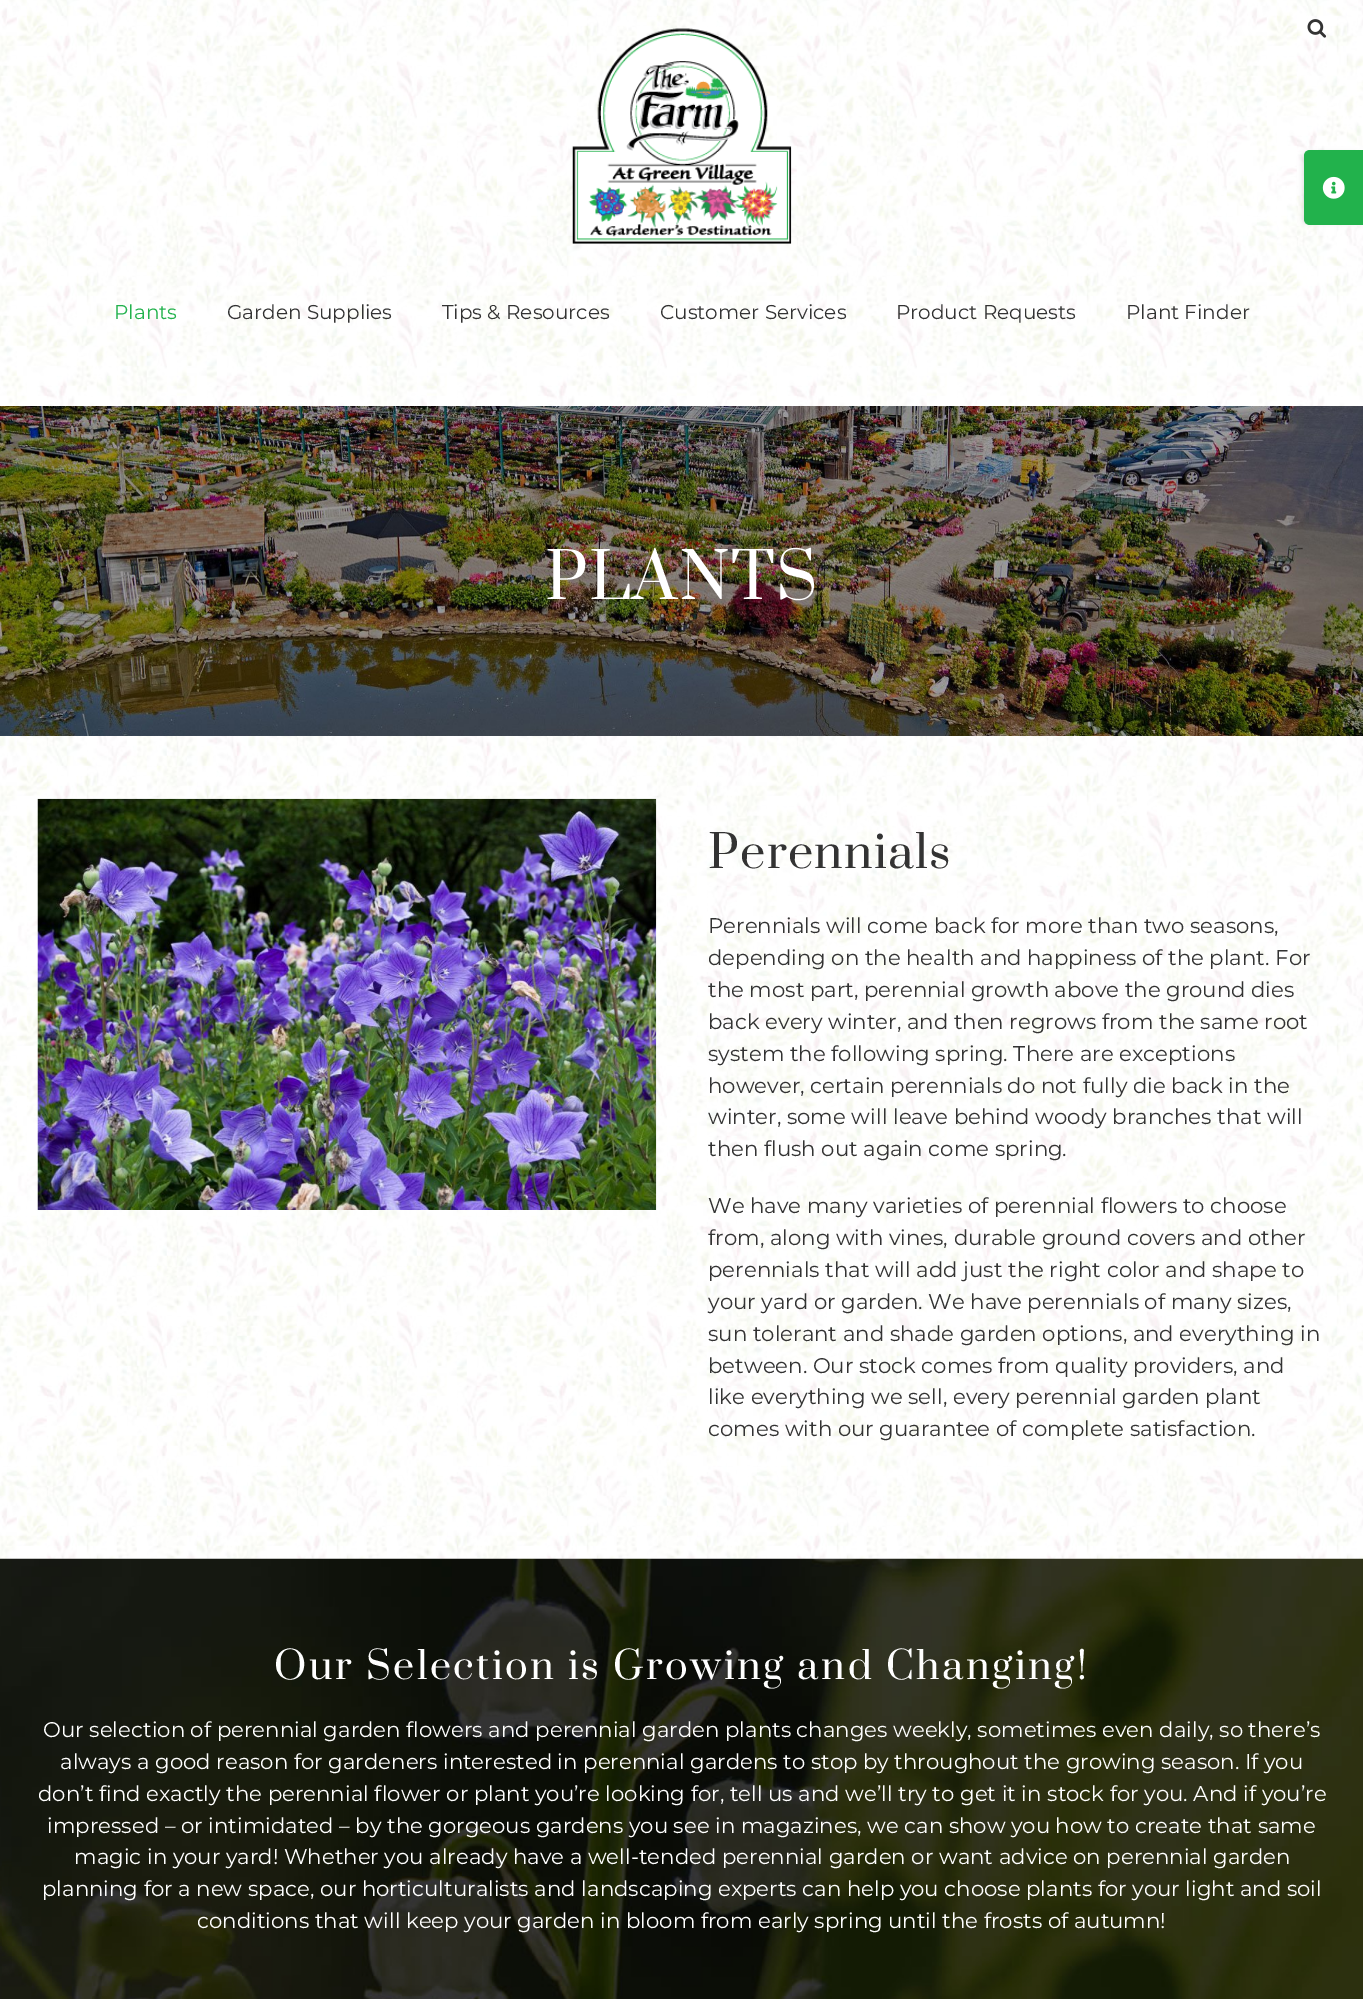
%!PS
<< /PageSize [1363 1999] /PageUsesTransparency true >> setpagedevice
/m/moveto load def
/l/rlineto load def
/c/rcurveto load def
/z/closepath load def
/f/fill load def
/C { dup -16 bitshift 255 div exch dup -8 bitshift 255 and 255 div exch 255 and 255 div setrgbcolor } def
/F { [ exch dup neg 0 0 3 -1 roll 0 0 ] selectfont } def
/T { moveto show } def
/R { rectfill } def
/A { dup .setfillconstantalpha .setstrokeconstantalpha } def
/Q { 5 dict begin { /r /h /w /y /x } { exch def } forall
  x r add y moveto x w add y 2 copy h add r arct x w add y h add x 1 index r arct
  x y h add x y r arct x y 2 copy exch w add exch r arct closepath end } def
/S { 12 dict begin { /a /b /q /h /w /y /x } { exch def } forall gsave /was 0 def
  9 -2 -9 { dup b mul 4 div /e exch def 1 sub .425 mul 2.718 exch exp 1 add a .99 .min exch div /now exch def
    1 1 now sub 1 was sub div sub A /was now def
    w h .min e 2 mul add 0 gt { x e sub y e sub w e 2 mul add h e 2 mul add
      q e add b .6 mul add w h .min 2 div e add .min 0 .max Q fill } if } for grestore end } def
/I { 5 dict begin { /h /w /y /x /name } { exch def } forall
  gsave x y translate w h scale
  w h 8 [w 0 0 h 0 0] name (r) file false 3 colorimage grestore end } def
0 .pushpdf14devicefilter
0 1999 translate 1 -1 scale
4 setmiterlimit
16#FFFFFF C
0 0 1363 1999 R
(1.rgb) 0 0 1363 1559 I
16#000000 C
1303 153 55 70 4 3 .14 S
16#22B24C C
1310 150 m 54 0 l 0 75 l -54 0 l -3.5 0 -6 -2.5 -6 -6 c 0 -63 l 0 -3.5 2.5 -6 6 -6 c z f
(2.rgb) 1322 176 23 23 I
(3.rgb) 1307 19 20 19 I
(4.rgb) 572 28 220 216 I
/Montserrat-Regular 20 F
(Plants) 114 319 T
16#333333 C
(Garden Supplies) 227 319 T
(Tips & Resources) 442 319 T
(Customer Services) 660 319 T
(Product Requests) 896 319 T
(Plant Finder) 1126 319 T
(5.rgb) 0 406 1363 330 I
/Prata-Regular 62.5 F
16#FFFFFF C
545 599 m 1.25 0 (PLANTS) ashow
(6.rgb) 37 798 620 412 I
/Prata-Regular 45 F
16#333333 C
708 868 m 1.25 0 (Perennials) ashow
/Montserrat-Regular 21.25 F
(Perennials will come back for more than two seasons,) 708 933 T
(depending on the health and happiness of the plant. For) 708 965 T
(the most part, perennial growth above the ground dies) 708 997 T
(back every winter, and then regrows from the same root) 708 1029 T
(system the following spring. There are exceptions) 708 1061 T
(however, certain perennials do not fully die back in the) 708 1093 T
(winter, some will leave behind woody branches that will) 708 1124 T
(then flush out again come spring.) 708 1156 T
(We have many varieties of perennial flowers to choose) 708 1213 T
(from, along with vines, durable ground covers and other) 708 1245 T
(perennials that will add just the right color and shape to) 708 1277 T
(your yard or garden. We have perennials of many sizes,) 708 1309 T
(sun tolerant and shade garden options, and everything in) 708 1341 T
(between. Our stock comes from quality providers, and) 708 1373 T
(like everything we sell, every perennial garden plant) 708 1404 T
(comes with our guarantee of complete satisfaction.) 708 1436 T
(7.rgb) 0 1558 1363 441 I
/Prata-Regular 37.5 F
16#FFFFFF C
274 1679 m 2.5 0 (Our Selection is Growing and Changing!) ashow
/Montserrat-Regular 21.25 F
(Our selection of perennial garden flowers and perennial garden plants changes weekly, sometimes even daily, so there’s) 43 1737 T
(always a good reason for gardeners interested in perennial gardens to stop by throughout the growing season. If you) 60 1769 T
(don’t find exactly the perennial flower or plant you’re looking for, tell us and we’ll try to get it in stock for you. And if you’re) 38 1801 T
(impressed – or intimidated – by the gorgeous gardens you see in magazines, we can show you how to create that same) 47 1833 T
(magic in your yard! Whether you already have a well-tended perennial garden or want advice on perennial garden) 74 1864 T
(planning for a new space, our horticulturalists and landscaping experts can help you choose plants for your light and soil) 42 1896 T
(conditions that will keep your garden in bloom from early spring until the frosts of autumn!) 197 1928 T
.poppdf14devicefilter showpage
